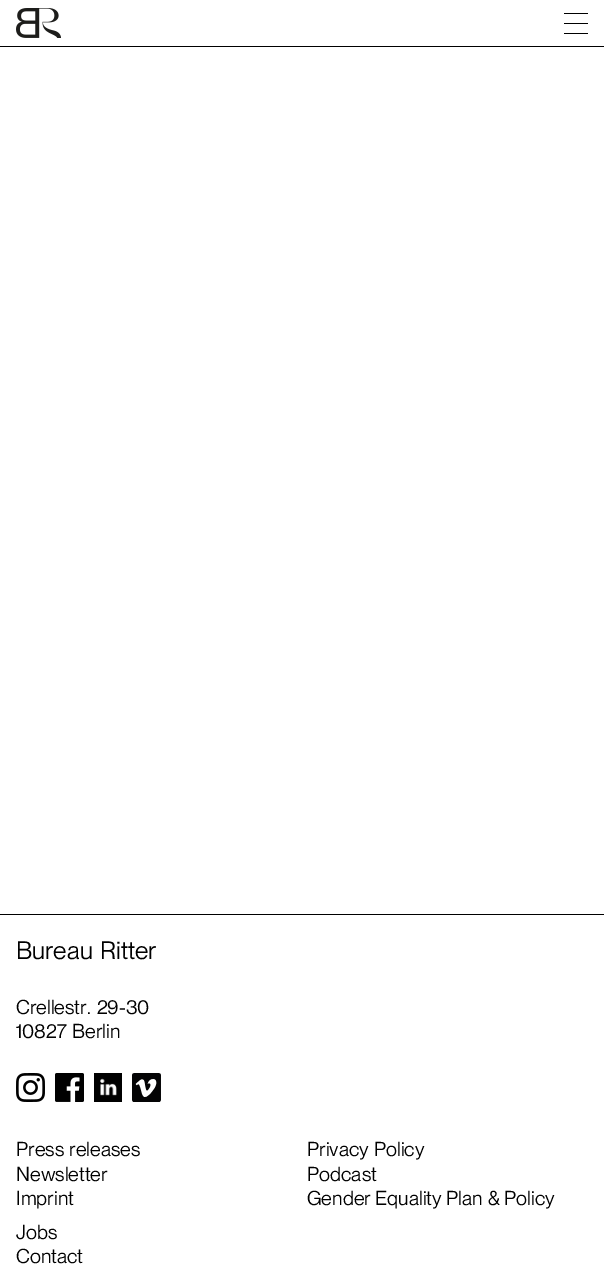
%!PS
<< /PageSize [604 1284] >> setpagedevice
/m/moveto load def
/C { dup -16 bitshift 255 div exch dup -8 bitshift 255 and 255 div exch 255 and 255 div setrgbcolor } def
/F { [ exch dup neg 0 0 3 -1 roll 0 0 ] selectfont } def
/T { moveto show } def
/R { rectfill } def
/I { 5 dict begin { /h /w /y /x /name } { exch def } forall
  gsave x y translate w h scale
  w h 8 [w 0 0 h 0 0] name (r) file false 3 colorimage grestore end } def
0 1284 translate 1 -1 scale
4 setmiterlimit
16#FFFFFF C
0 0 604 1284 R
16#000000 C
0 46 604 1 R
(1.rgb) 16 8 45 30 I
564 13 24 1 R
564 23 24 1 R
564 33 24 1 R
0 914 604 1 R
/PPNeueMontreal-Italic 24.75 F
16 959 m 2 0 32 (Bureau Ritter) widthshow
/PPNeueMontreal-Italic 19.75 F
16 1014 m 2 0 32 (Crellestr. 29-30) widthshow
16 1038 m 1 0 32 (10827 Berlin) widthshow
(2.rgb) 16 1073 29 29 I
(3.rgb) 55 1073 29 29 I
(4.rgb) 94 1073 28 29 I
(5.rgb) 132 1073 29 29 I
16 1156 m 1 0 32 (Press releases) widthshow
(Newsletter) 16 1181 T
(Imprint) 16 1205 T
307 1156 m 1 0 32 (Privacy Policy) widthshow
(Podcast) 307 1181 T
307 1205 m .5 0 32 (Gender Equality Plan & Policy) widthshow
(Jobs) 16 1239 T
(Contact) 16 1263 T
showpage
